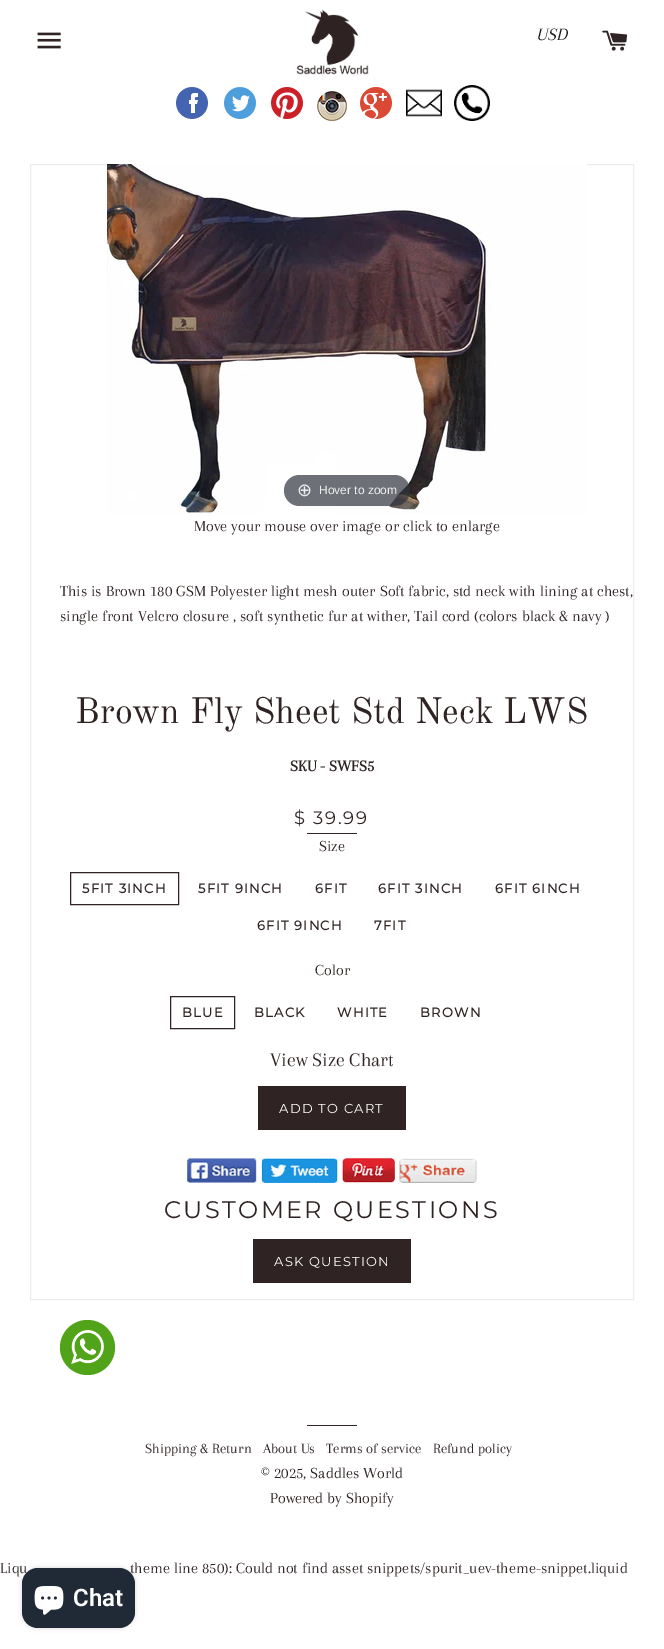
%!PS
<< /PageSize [664 1649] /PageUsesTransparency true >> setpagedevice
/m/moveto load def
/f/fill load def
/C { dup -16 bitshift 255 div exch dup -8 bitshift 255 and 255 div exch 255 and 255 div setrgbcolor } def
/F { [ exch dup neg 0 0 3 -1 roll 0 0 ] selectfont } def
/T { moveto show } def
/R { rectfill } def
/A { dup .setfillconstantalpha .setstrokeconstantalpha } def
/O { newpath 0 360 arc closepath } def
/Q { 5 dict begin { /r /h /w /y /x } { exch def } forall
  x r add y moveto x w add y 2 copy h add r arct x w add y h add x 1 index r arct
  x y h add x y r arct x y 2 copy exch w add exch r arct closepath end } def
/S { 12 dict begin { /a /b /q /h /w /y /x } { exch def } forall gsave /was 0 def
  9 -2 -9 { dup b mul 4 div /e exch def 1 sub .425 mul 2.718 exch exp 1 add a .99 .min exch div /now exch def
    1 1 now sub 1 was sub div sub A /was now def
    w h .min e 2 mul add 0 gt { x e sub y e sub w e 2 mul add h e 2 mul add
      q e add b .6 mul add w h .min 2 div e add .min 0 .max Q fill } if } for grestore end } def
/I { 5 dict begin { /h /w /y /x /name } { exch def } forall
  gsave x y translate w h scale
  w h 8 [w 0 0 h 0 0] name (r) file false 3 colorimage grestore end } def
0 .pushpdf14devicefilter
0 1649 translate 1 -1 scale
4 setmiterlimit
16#FFFFFF C
0 0 664 1649 R
(1.rgb) 37 32 24 17 I
(2.rgb) 296 10 73 65 I
/Arapey-Italic 18 F
16#1C1D1D C
(USD) 536 40 T
(3.rgb) 602 30 26 21 I
(4.rgb) 176 87 32 32 I
(5.rgb) 224 87 32 32 I
(6.rgb) 271 87 32 32 I
(7.rgb) 317 91 30 30 I
(8.rgb) 360 87 32 32 I
(9.rgb) 406 89 36 28 I
(10.rgb) 454 85 36 36 I
16#ECECEC C
30.5 164.5 603 1135 rectstroke
(11.rgb) 107 164 480 350 I
0.7 A
16#31333D C
284 475 126 31 15.5 Q f
/DejaVuSans-Regular 18 F
1 A
16#EEEEEE C
(⊕) 297 496 T
/LiberationSans-Regular 12 F
(Hover to zoom) 319 494 T
/Arapey-Regular 16 F
16#2F2323 C
(Move your mouse over image or click to enlarge) 194 531 T
(This is Brown 180 GSM Polyester light mesh outer Soft fabric, std neck with lining at chest,) 60 596 T
(single front Velcro closure , soft synthetic fur at wither, Tail cord \(colors black & navy \)) 60 621 T
/OldStandardTT-Regular 36 F
(Brown Fly Sheet Std Neck LWS) 75 723 T
/Arapey-Bold 16 F
(SKU - SWFS5) 290 771 T
/Montserrat-Thin 18 F
294 824 m 1.75 0 ($ 39.99) ashow
307 833 50 1 R
/Arapey-Regular 16 F
(Size) 319 851 T
70.5 872.5 108 32 rectstroke
/Montserrat-Bold 13 F
82 893 m 1.25 0 (5FIT 3INCH) ashow
198 893 m 1.25 0 (5FIT 9INCH) ashow
315 893 m 1.25 0 (6FIT) ashow
378 893 m 1.25 0 (6FIT 3INCH) ashow
495 893 m 1.25 0 (6FIT 6INCH) ashow
257 930 m 1.25 0 (6FIT 9INCH) ashow
374 930 m 1.25 0 (7FIT) ashow
/Arapey-Regular 16 F
(Color) 315 975 T
170.5 996.5 64 32 rectstroke
/Montserrat-Bold 13 F
182 1017 m 1.25 0 (BLUE) ashow
254 1017 m 1.25 0 (BLACK) ashow
337 1017 m 1.25 0 (WHITE) ashow
420 1017 m 1.25 0 (BROWN) ashow
/Arapey-Regular 20 F
(View Size Chart) 270 1066 T
258 1086 148 44 R
/Montserrat-Thin 13 F
16#FFFFFF C
279 1113 m 1.25 0 (ADD TO CART) ashow
(12.rgb) 187 1158 70 25 I
(13.rgb) 261 1158 77 25 I
(14.rgb) 342 1158 53 25 I
(15.rgb) 399 1158 78 25 I
/Montserrat-Thin 24 F
16#2F2323 C
164 1218 m 2.4 0 (CUSTOMER QUESTIONS) ashow
253 1239 158 44 R
/Montserrat-Thin 13 F
16#FFFFFF C
274 1266 m 1.25 0 (ASK QUESTION) ashow
16#51A419 C
87.5 1347.5 27.5 O f
(16.rgb) 71 1330 33 34 I
16#2F2323 C
307 1425 50 1 R
/Arapey-Regular 14.5 F
(Shipping & Return) 145 1453 T
(About Us) 263 1453 T
(Terms of service) 326 1453 T
(Refund policy) 433 1453 T
/Arapey-Regular 16 F
(© 2025, Saddles World) 261 1478 T
(Powered by Shopify) 270 1503 T
(Liqu) 0 1573 T
(theme line 850\): Could not find asset snippets/spurit_uev-theme-snippet.liquid) 130 1573 T
16#000000 C
22 1568 113 60 16 2.5 .15 S
16#202A36 C
22 1568 113 60 16 Q f
(17.rgb) 34 1586 30 29 I
/Roboto-SemiBold 24 F
16#FFFFFF C
(Chat) 73 1606 T
.poppdf14devicefilter showpage
